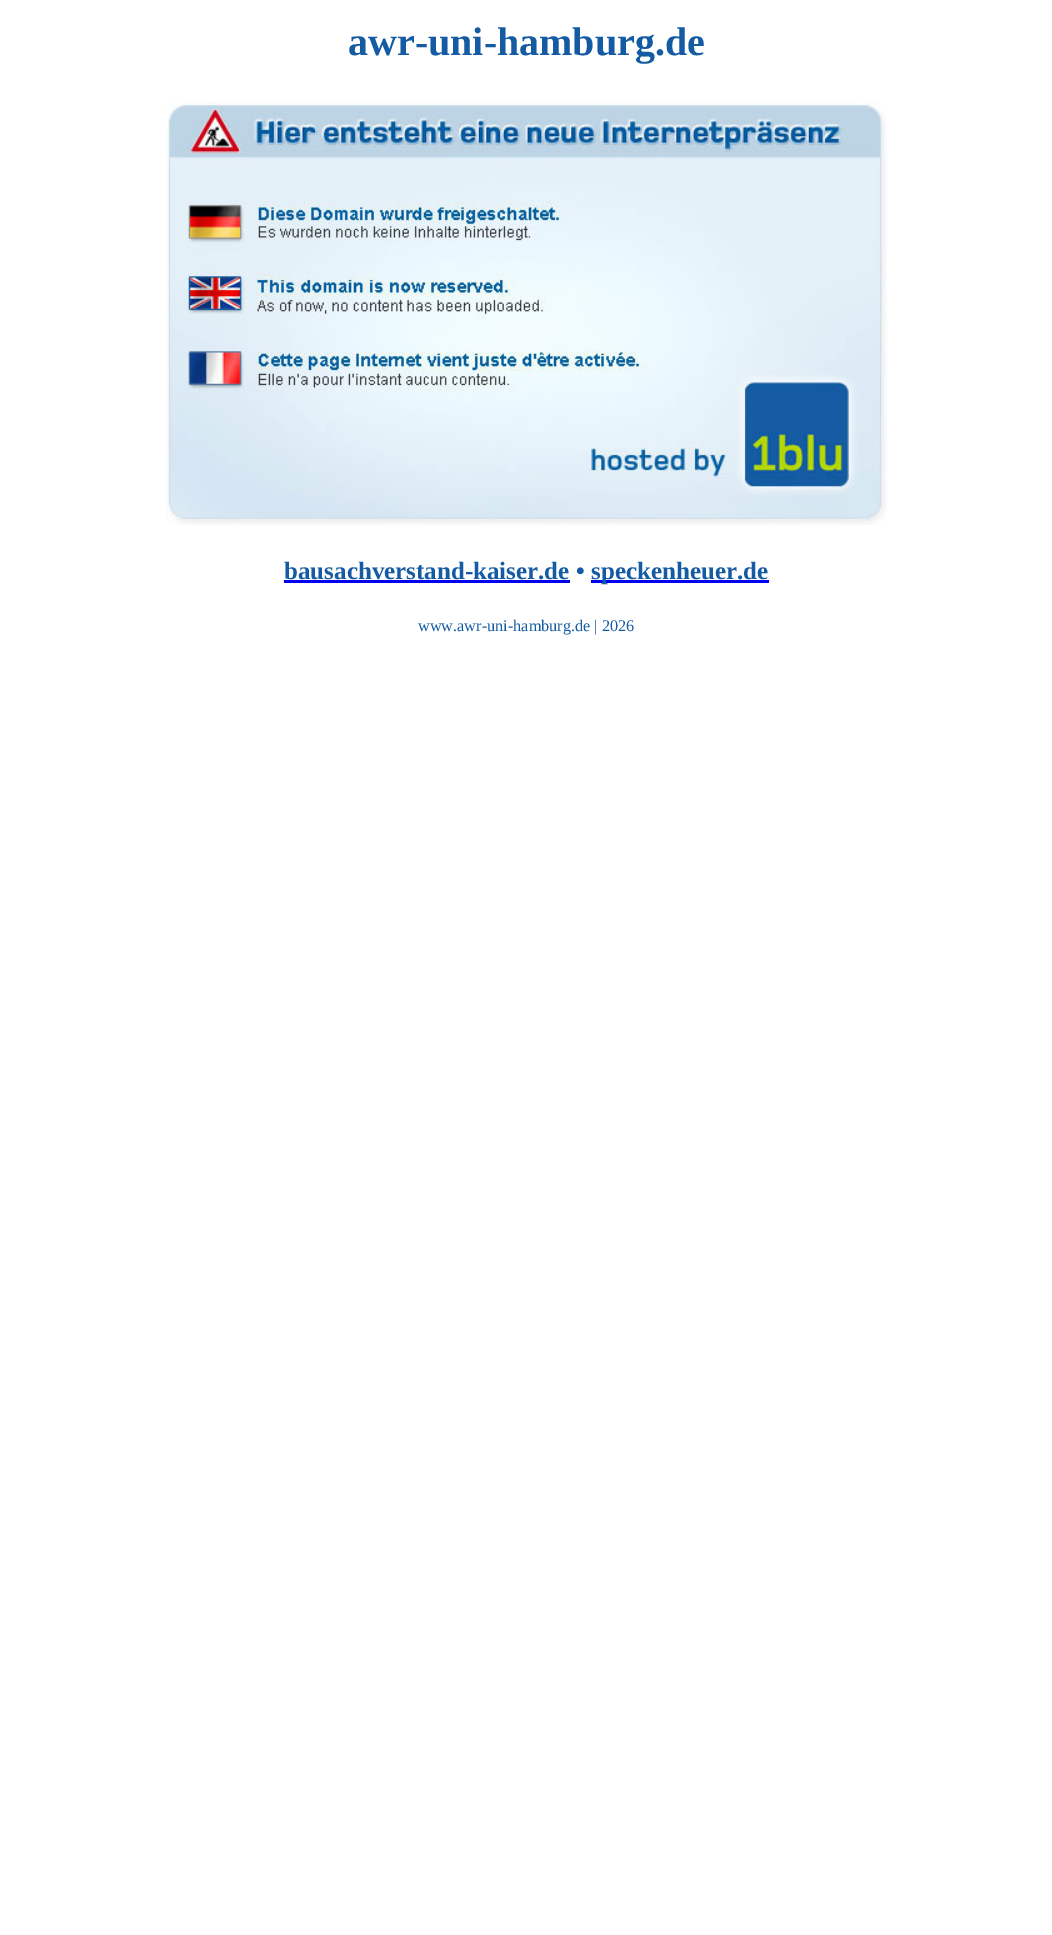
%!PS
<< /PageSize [1052 1935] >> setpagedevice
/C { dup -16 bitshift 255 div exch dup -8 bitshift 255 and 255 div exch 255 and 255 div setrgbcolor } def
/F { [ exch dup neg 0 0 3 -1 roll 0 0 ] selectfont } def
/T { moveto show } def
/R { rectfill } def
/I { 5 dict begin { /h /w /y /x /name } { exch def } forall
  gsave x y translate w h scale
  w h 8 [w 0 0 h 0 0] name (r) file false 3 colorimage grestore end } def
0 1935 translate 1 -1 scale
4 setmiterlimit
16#FFFFFF C
0 0 1052 1935 R
/LiberationSerif-Bold 40 F
16#145BA3 C
(awr-uni-hamburg.de) 348 55 T
(1.rgb) 166 101 721 424 I
/LiberationSerif-Bold 25 F
(bausachverstand-kaiser.de •) 284 579 T
16#0000EE C
284 580 286 3 R
591 580 178 3 R
16#145BA3 C
(speckenheuer.de) 591 579 T
/LiberationSerif-Regular 16.25 F
(www.awr-uni-hamburg.de | 2026) 418 631 T
showpage
